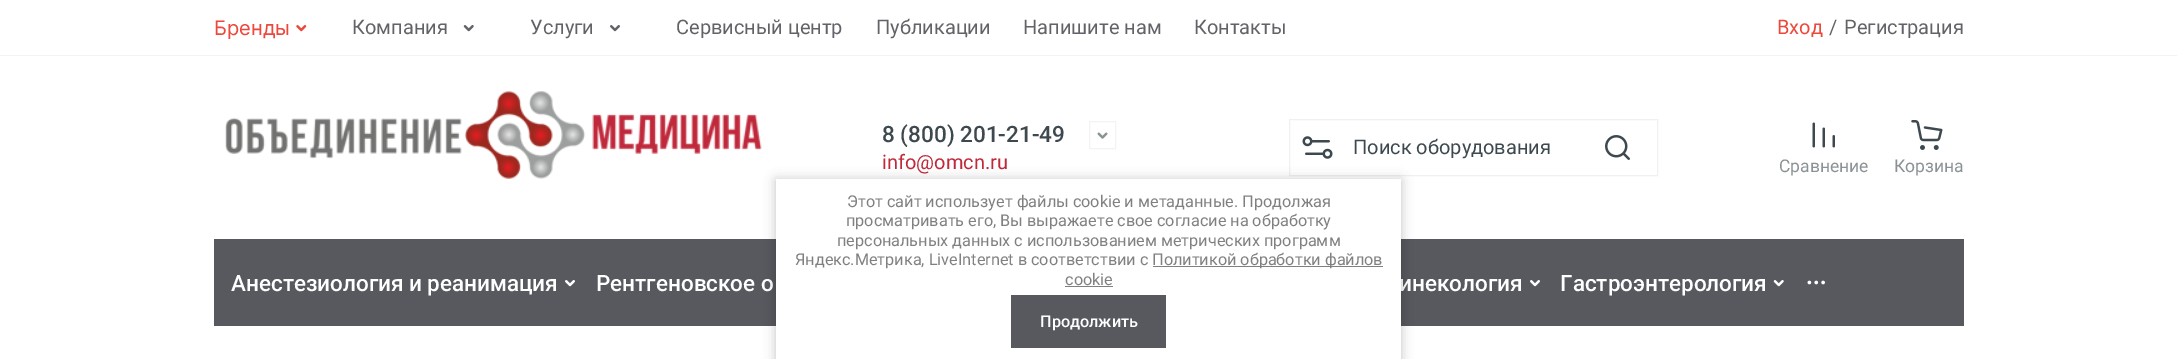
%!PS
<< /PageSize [2177 359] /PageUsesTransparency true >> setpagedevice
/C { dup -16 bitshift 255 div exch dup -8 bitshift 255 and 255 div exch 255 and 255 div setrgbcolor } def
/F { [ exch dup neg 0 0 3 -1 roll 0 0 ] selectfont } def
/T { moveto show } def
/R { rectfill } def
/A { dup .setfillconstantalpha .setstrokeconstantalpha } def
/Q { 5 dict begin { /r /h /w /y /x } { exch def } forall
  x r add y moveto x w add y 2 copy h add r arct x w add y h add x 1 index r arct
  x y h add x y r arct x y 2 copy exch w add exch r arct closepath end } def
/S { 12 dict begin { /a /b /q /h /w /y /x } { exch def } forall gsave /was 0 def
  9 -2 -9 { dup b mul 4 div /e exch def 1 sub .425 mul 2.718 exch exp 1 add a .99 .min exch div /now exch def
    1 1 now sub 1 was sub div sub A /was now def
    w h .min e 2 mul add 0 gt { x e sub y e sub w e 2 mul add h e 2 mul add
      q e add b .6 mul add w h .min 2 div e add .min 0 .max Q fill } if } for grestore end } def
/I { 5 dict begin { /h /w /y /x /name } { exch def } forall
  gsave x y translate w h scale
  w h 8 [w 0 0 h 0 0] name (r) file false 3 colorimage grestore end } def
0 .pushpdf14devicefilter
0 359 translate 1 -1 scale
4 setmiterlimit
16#FFFFFF C
0 0 2177 359 R
16#F3F3F6 C
0 55 2177 1 R
/Inter-Regular 20 F
16#EB493C C
(Бренды) 214 35 T
(1.rgb) 296 25 11 7 I
/Roboto-Regular 20 F
16#626368 C
(Компания) 352 34 T
(2.rgb) 463 25 11 7 I
(Услуги) 530 34 T
(3.rgb) 610 25 10 7 I
(Сервисный центр) 676 34 T
(Публикации) 876 34 T
(Напишите нам) 1023 34 T
(Контакты) 1194 34 T
16#EB493C C
(Вход) 1777 34 T
16#626368 C
(/) 1829 34 T
(Регистрация) 1844 34 T
(4.rgb) 225 91 537 88 I
/Roboto-Medium 22.5 F
16#3D494F C
(8 \(800\) 201-21-49) 882 142 T
/Roboto-Regular 20 F
16#C0293B C
(info@omcn.ru) 882 169 T
16#F3F3F6 C
1089.5 121.5 26 27 rectstroke
(5.rgb) 1097 132 11 7 I
16#F0F0F0 C
1289.5 119.5 368 56 rectstroke
(6.rgb) 1302 136 31 23 I
16#3D494F C
(Поиск оборудования) 1353 154 T
(7.rgb) 1605 135 25 25 I
(8.rgb) 1812 122 23 26 I
/Roboto-Regular 17.5 F
16#8B9295 C
(Сравнение) 1779 172 T
(9.rgb) 1911 120 32 30 I
(Корзина) 1894 172 T
16#57595E C
214 239 1750 87 R
/Roboto-Medium 22.5 F
16#FFFFFF C
(Анестезиология и реанимация) 231 291 T
(10.rgb) 565 280 10 7 I
(Рентгеновское о) 596 291 T
(инекология) 1399 291 T
(10.rgb) 1530 280 10 7 I
(Гастроэнтерология) 1560 291 T
(11.rgb) 1773 280 11 7 I
(12.rgb) 1807 280 18 5 I
16#000000 C
776 180 625 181 0 6 .23 S
16#FFFFFF C
776 179 625 180 R
/Roboto-Regular 16.25 F
16#808080 C
(Этот сайт использует файлы cookie и метаданные. Продолжая) 847 207 T
(просматривать его, Вы выражаете свое согласие на обработку) 846 226 T
(персональных данных с использованием метрических программ) 837 246 T
(Яндекс.Метрика, LiveInternet в соответствии с) 795 265 T
1153 266 230 1 R
(Политикой обработки файлов) 1152 265 T
(cookie) 1065 285 T
1065 286 48 1 R
16#57595E C
1011 295 155 53 R
/Roboto-Medium 16.25 F
16#FFFFFF C
(Продолжить) 1040 327 T
.poppdf14devicefilter showpage
